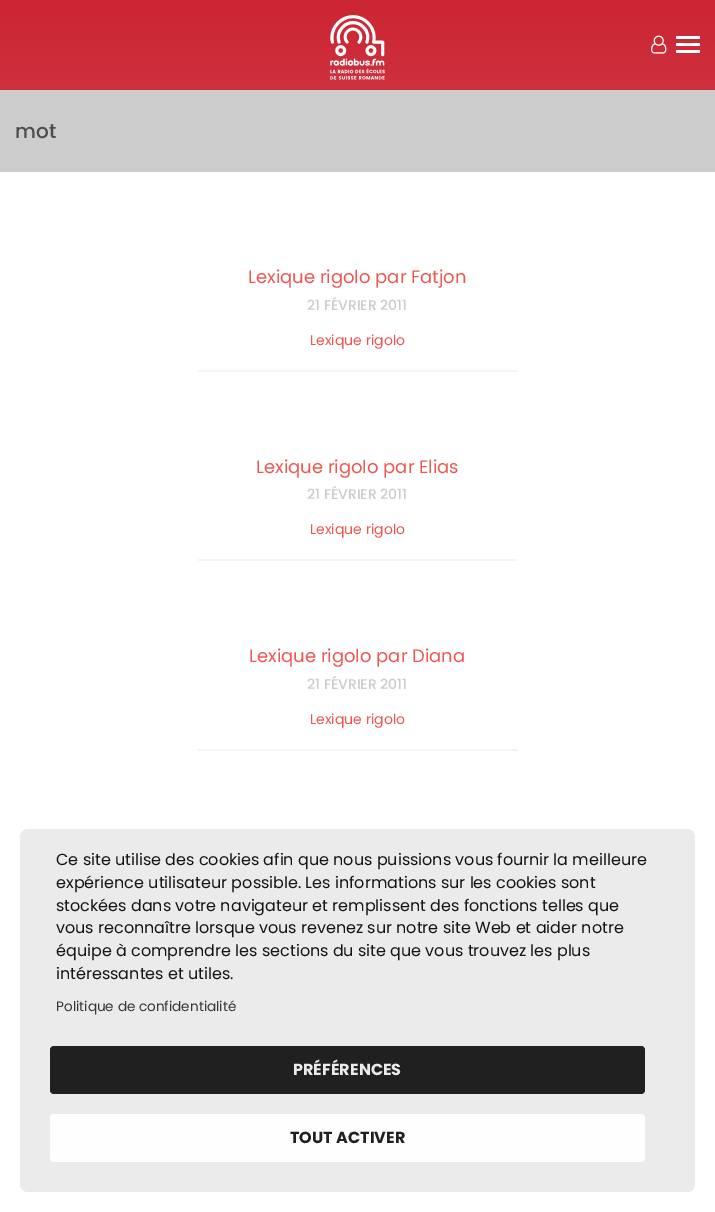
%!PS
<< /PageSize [715 1212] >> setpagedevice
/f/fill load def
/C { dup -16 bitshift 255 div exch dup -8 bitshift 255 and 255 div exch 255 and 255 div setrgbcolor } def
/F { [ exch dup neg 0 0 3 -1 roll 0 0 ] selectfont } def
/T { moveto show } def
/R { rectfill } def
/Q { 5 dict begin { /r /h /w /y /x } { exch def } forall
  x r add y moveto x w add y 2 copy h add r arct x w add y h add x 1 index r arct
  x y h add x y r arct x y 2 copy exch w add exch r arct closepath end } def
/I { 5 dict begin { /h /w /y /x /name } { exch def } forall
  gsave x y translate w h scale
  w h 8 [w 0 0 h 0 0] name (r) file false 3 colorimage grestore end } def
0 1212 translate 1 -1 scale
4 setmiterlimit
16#FFFFFF C
0 0 715 1212 R
(1.rgb) 0 0 715 90 I
(2.rgb) 330 15 55 65 I
(3.rgb) 651 35 16 19 I
676 36 24 3 R
676 43 24 3 R
676 50 24 3 R
16#CCCCCC C
0 90 715 82 R
/Poppins-Medium 20 F
16#4D4D4D C
(mot) 15 138 T
16#F5F5F5 C
198 370 320 2 R
/Poppins-Regular 18 F
16#ED5651 C
(Lexique rigolo par Fatjon) 248 283 T
/Poppins-Medium 14 F
16#CCCCCC C
(21 FÉVRIER 2011) 307 310 T
/Poppins-Regular 14 F
16#ED5651 C
(Lexique rigolo) 310 345 T
16#F5F5F5 C
198 559 320 2 R
/Poppins-Regular 18 F
16#ED5651 C
(Lexique rigolo par Elias) 256 473 T
/Poppins-Medium 14 F
16#CCCCCC C
(21 FÉVRIER 2011) 307 499 T
/Poppins-Regular 14 F
16#ED5651 C
(Lexique rigolo) 310 534 T
16#F5F5F5 C
198 749 320 2 R
/Poppins-Regular 18 F
16#ED5651 C
(Lexique rigolo par Diana) 249 662 T
/Poppins-Medium 14 F
16#CCCCCC C
(21 FÉVRIER 2011) 307 689 T
/Poppins-Regular 14 F
16#ED5651 C
(Lexique rigolo) 310 724 T
16#EBEBEB C
20 829 675 363 8 Q f
/Poppins-Regular 16 F
16#151515 C
(Ce site utilise des cookies afin que nous puissions vous fournir la meilleure) 56 865 T
(expérience utilisateur possible. Les informations sur les cookies sont) 56 888 T
(stockées dans votre navigateur et remplissent des fonctions telles que) 56 911 T
(vous reconnaître lorsque vous revenez sur notre site Web et aider notre) 56 933 T
(équipe à comprendre les sections du site que vous trouvez les plus) 56 956 T
(intéressantes et utiles.) 56 979 T
/Poppins-Regular 13.6 F
16#353535 C
(Politique de confidentialité) 56 1011 T
16#202020 C
50 1046 595 48 4 Q f
/Poppins-Bold 16 F
16#EBEBEB C
(PRÉFÉRENCES) 293 1075 T
16#FEFEFE C
50 1114 595 48 4 Q f
16#202020 C
(TOUT ACTIVER) 290 1143 T
showpage
